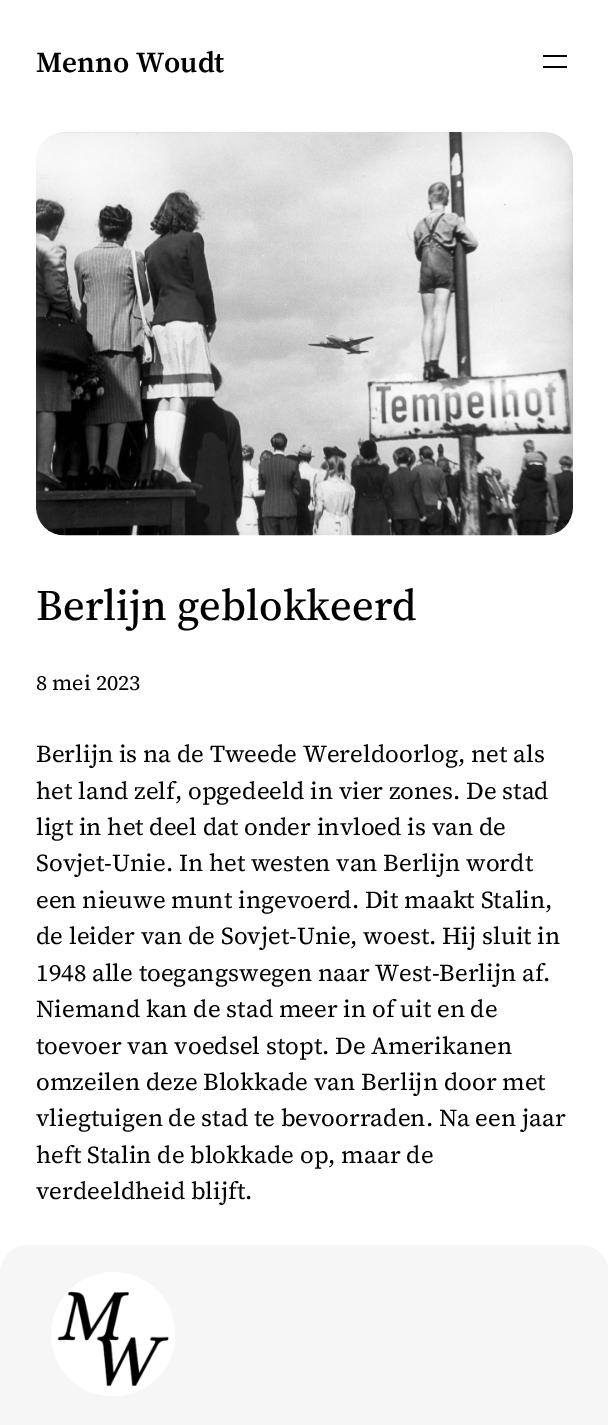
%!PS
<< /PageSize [608 1425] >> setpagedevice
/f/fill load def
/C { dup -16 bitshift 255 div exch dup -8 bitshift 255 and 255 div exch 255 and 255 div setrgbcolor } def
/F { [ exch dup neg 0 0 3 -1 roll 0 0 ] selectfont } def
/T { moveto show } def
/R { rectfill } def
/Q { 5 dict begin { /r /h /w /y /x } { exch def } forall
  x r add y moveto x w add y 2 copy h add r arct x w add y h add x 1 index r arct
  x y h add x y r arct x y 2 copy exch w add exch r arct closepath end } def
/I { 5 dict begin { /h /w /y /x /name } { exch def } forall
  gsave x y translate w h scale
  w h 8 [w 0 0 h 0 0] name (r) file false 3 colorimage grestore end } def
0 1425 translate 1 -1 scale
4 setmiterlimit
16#FFFFFF C
0 0 608 1425 R
/SourceSerif4-SemiBold 29 F
16#000000 C
(Menno Woudt) 36 72 T
543 55 24 2 R
543 66 24 2 R
(1.rgb) 36 132 537 404 I
/SourceSerif4-Medium 43.5 F
(Berlijn geblokkeerd) 36 620 T
/SourceSerif4-Regular 21.25 F
(8 mei 2023) 36 690 T
/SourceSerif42-Regular 24.25 F
(Berlijn is na de Tweede Wereldoorlog, net als) 36 762 T
(het land zelf, opgedeeld in vier zones. De stad) 36 799 T
(ligt in het deel dat onder invloed is van de) 36 835 T
(Sovjet-Unie. In het westen van Berlijn wordt) 36 871 T
(een nieuwe munt ingevoerd. Dit maakt Stalin,) 36 908 T
(de leider van de Sovjet-Unie, woest. Hij sluit in) 36 944 T
(1948 alle toegangswegen naar West-Berlijn af.) 36 981 T
(Niemand kan de stad meer in of uit en de) 36 1017 T
(toevoer van voedsel stopt. De Amerikanen) 36 1054 T
(omzeilen deze Blokkade van Berlijn door met) 36 1090 T
(vliegtuigen de stad te bevoorraden. Na een jaar) 36 1126 T
(heft Stalin de blokkade op, maar de) 36 1163 T
(verdeeldheid blijft.) 36 1199 T
16#F6F6F6 C
0 1245 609 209 29 Q f
(2.rgb) 51 1272 124 124 I
showpage
